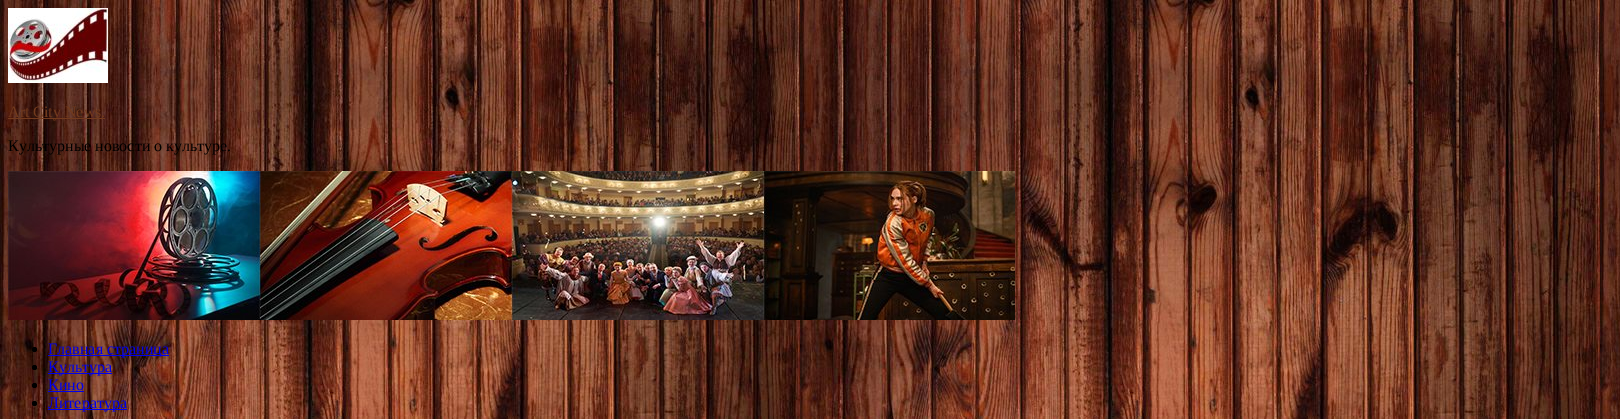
%!PS
<< /PageSize [1620 419] >> setpagedevice
/f/fill load def
/C { dup -16 bitshift 255 div exch dup -8 bitshift 255 and 255 div exch 255 and 255 div setrgbcolor } def
/F { [ exch dup neg 0 0 3 -1 roll 0 0 ] selectfont } def
/T { moveto show } def
/R { rectfill } def
/O { newpath 0 360 arc closepath } def
/I { 5 dict begin { /h /w /y /x /name } { exch def } forall
  gsave x y translate w h scale
  w h 8 [w 0 0 h 0 0] name (r) file false 3 colorimage grestore end } def
0 419 translate 1 -1 scale
4 setmiterlimit
16#FFFFFF C
0 0 1620 419 R
(1.rgb) 0 0 1620 419 I
(2.rgb) 8 8 100 75 I
16#723A1D C
8 118 97 1 R
/LiberationSerif-Regular 16 F
(Art City News.) 8 117 T
16#000000 C
(Культурные новости о культуре.) 8 151 T
(3.rgb) 8 171 1007 149 I
34.5 349.5 2.5 O f
16#0000EE C
48 355 121 1 R
(Главная страница) 48 354 T
16#000000 C
34.5 367.5 2.5 O f
16#0000EE C
48 373 64 1 R
(Культура) 48 372 T
16#000000 C
34.5 385.5 2.5 O f
16#0000EE C
(Кино) 48 390 T
48 391 36 1 R
16#000000 C
34.5 403.5 2.5 O f
16#0000EE C
48 409 79 1 R
(Литература) 48 408 T
showpage
